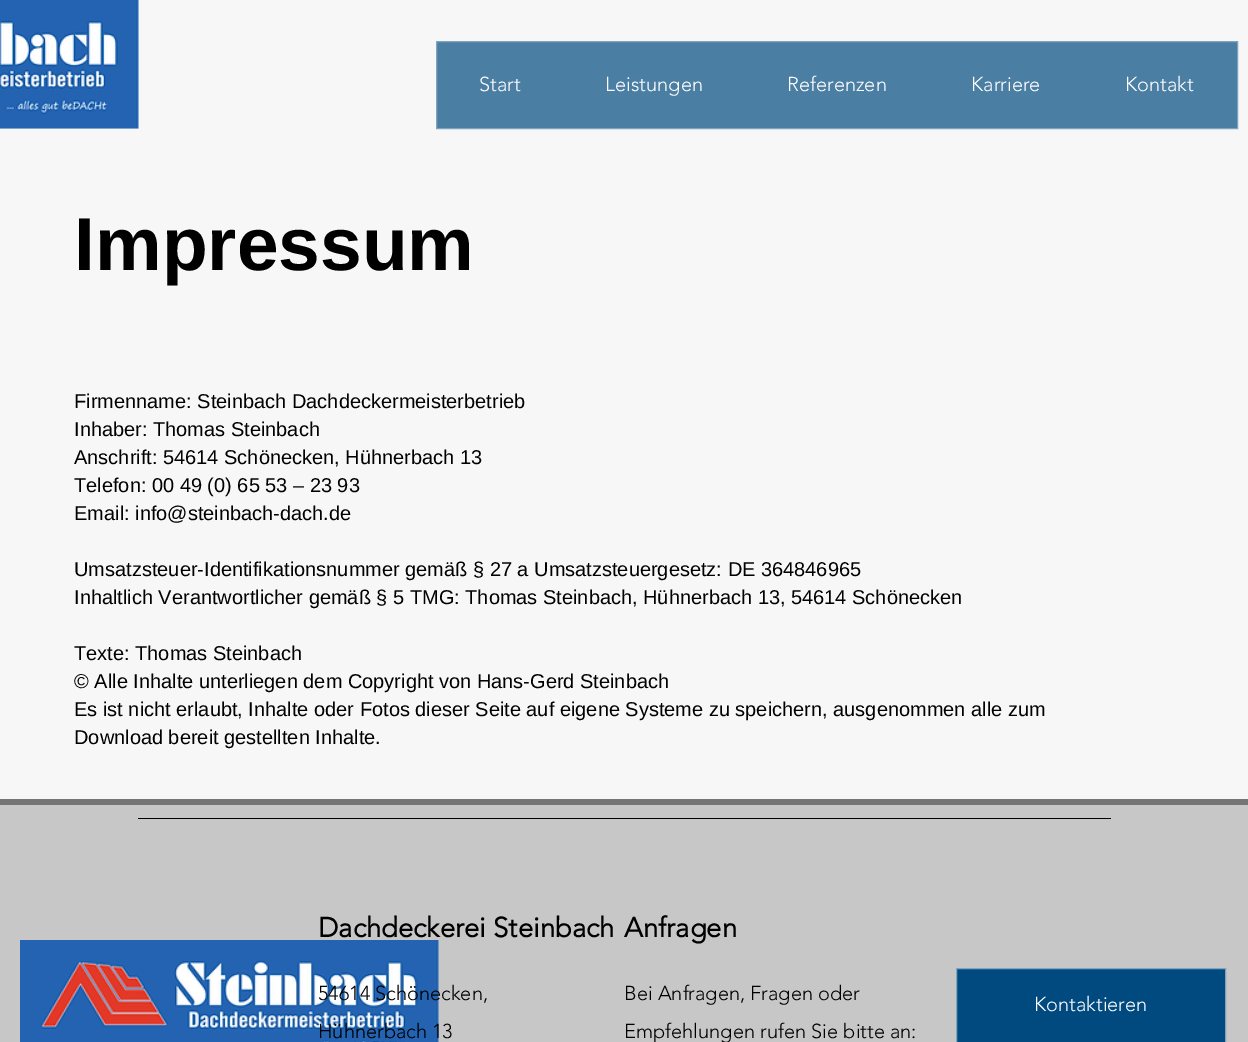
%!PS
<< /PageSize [1248 1042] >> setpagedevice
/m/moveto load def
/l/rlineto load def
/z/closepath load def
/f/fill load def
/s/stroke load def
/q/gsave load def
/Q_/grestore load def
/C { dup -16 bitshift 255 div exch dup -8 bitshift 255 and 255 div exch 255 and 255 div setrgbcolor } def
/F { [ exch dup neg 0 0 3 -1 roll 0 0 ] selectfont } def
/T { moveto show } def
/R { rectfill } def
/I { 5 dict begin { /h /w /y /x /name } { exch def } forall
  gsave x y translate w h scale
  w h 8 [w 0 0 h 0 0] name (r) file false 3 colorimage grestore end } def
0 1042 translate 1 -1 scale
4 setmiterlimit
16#F7F7F7 C
0 0 1248 1042 R
(1.rgb) 0 0 139 129 I
16#4B7EA3 C
436.5 41.5 m 801 0 l 0 87 l -801 0 l z q f Q_
16#80A4BF C
s
/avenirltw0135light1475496-Light 20 F
16#FFFFFF C
(Start) 479 91 T
(Leistungen) 605 91 T
(Referenzen) 787 91 T
(Karriere) 971 91 T
(Kontakt) 1125 91 T
/LiberationSans-Bold 75 F
16#000000 C
(Impressum) 74 270 T
/LiberationSans-Regular 20 F
(Firmenname: Steinbach Dachdeckermeisterbetrieb) 74 408 T
(Inhaber: Thomas Steinbach) 74 436 T
(Anschrift: 54614 Schönecken, Hühnerbach 13) 74 464 T
(Telefon: 00 49 \(0\) 65 53 – 23 93) 74 492 T
(Email: info@steinbach-dach.de) 74 520 T
(Umsatzsteuer-Identifikationsnummer gemäß § 27 a Umsatzsteuergesetz: DE 364846965) 74 576 T
(Inhaltlich Verantwortlicher gemäß § 5 TMG: Thomas Steinbach, Hühnerbach 13, 54614 Schönecken) 74 604 T
(Texte: Thomas Steinbach) 74 660 T
(© Alle Inhalte unterliegen dem Copyright von Hans-Gerd Steinbach) 74 688 T
(Es ist nicht erlaubt, Inhalte oder Fotos dieser Seite auf eigene Systeme zu speichern, ausgenommen alle zum) 74 716 T
(Download bereit gestellten Inhalte.) 74 744 T
16#C7C7C7 C
0 805 1248 237 R
16#757575 C
0 799 1248 6 R
16#000000 C
138 818 973 1 R
(2.rgb) 20 940 419 102 I
/avenirltw0135light1475496-Bold 27.5 F
(Dachdeckerei Steinbach) 318 937 T
/avenirltw0135light1475496-Light 20 F
(54614 Schönecken,) 318 1000 T
(Hühnerbach 13) 318 1038 T
/avenirltw0135light1475496-Bold 27.5 F
(Anfragen) 624 937 T
/avenirltw0135light1475496-Light 20 F
(Bei Anfragen, Fragen oder) 624 1000 T
(Empfehlungen rufen Sie bitte an:) 624 1038 T
16#014A7F C
956.5 968.5 m 269 0 l 0 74 l -269 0 l z q f Q_
16#80A4BF C
s
16#FFFFFF C
(Kontaktieren) 1034 1011 T
showpage
